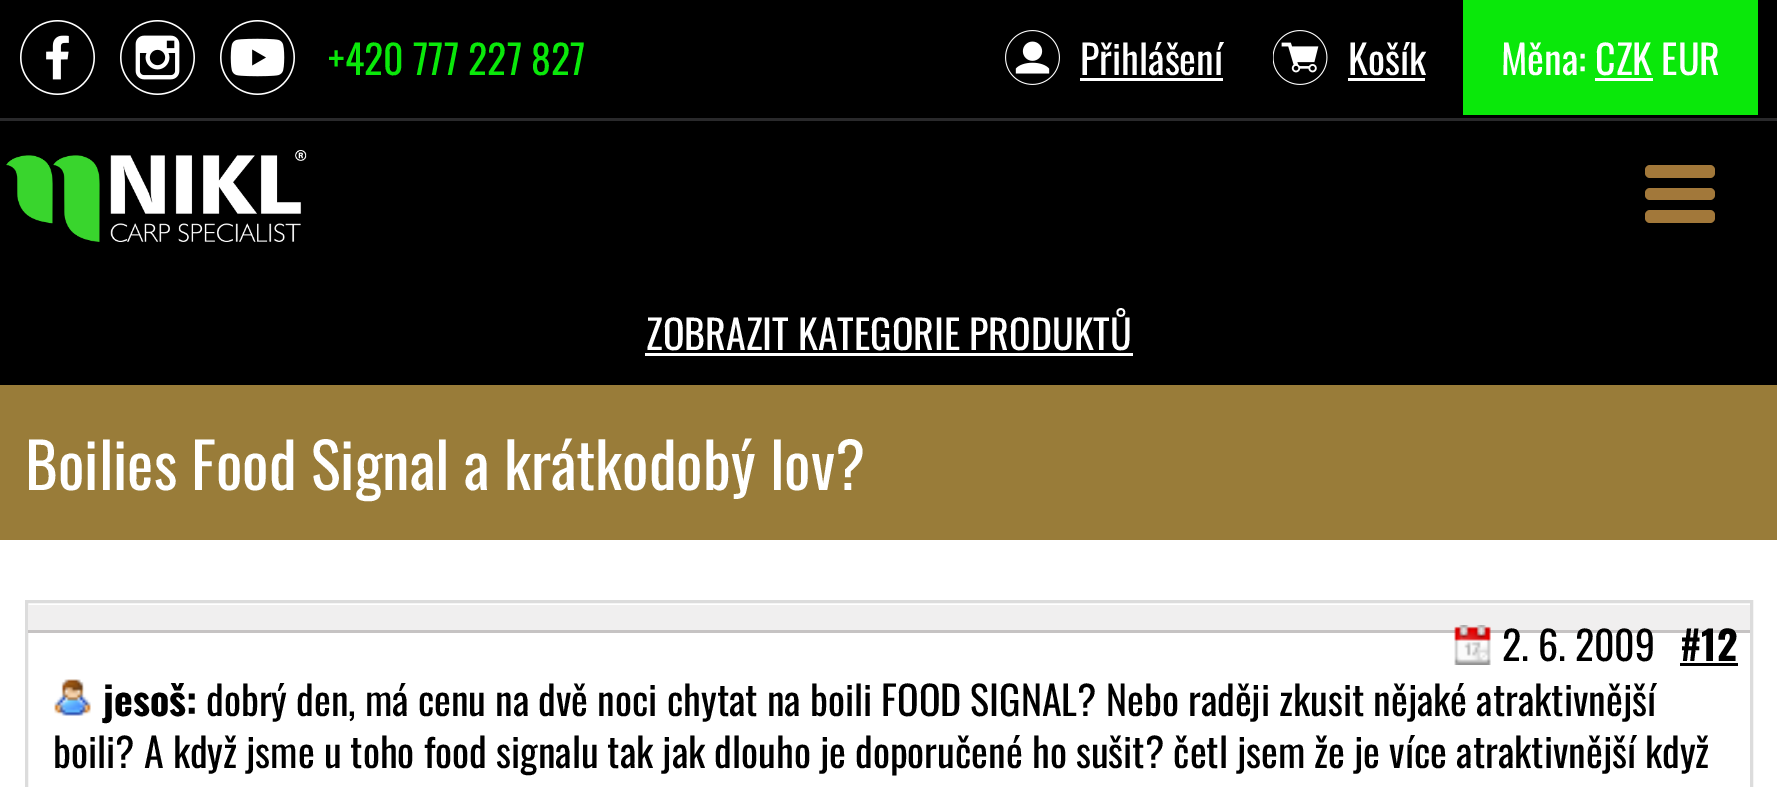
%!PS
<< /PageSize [1777 787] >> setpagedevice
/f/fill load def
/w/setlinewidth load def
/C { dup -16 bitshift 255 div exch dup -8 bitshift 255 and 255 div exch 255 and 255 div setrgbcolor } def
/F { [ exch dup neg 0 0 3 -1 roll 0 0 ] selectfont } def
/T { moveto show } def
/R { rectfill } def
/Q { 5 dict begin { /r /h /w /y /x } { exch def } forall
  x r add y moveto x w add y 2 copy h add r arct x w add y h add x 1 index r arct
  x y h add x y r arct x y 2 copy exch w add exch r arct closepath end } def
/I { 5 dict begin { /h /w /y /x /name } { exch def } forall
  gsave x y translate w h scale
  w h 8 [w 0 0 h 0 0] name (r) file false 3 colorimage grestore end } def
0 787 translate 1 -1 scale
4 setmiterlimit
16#000000 C
0 0 1777 787 R
16#29292B C
0 118 1777 3 R
(1.rgb) 20 20 75 75 I
(2.rgb) 120 20 75 75 I
(3.rgb) 220 20 75 75 I
/Oswald-Regular 40 F
16#0AE80A C
(+420 777 227 827) 328 75 T
(4.rgb) 1005 30 55 55 I
16#FFFFFF C
(Přihlášení) 1080 75 T
1080 78 143 3 R
(5.rgb) 1273 30 55 55 I
(Košík) 1348 75 T
1348 78 77 3 R
16#0AE80A C
1463 0 295 115 R
16#FFFFFF C
(Měna: CZK EUR) 1501 75 T
1595 78 58 3 R
(6.rgb) 6 150 301 92 I
16#A2783A C
1645 188 70 12 5 Q f
1645 165 70 13 5 Q f
1645 210 70 13 5 Q f
16#FFFFFF C
(ZOBRAZIT KATEGORIE PRODUKTŮ) 646 350 T
645 353 488 3 R
0 540 1777 247 R
16#997C39 C
0 385 1777 155 R
/Oswald-Regular 62.5 F
16#FFFFFF C
(Boilies Food Signal a krátkodobý lov?) 25 490 T
16#DCDCDC C
3 w
26.5 601.5 1725 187 rectstroke
16#F0EFEF C
28 605 1722 25 R
16#C6C3C3 C
28 630 1722 3 R
(7.rgb) 1454 625 37 40 I
/Oswald-Regular 40 F
16#000000 C
(2. 6. 2009) 1502 661 T
/Oswald-Bold 40 F
(#12) 1680 661 T
1680 663 58 3 R
(8.rgb) 54 679 37 37 I
(jesoš:) 103 716 T
/Oswald-Regular 40 F
(dobrý den, má cenu na dvě noci chytat na boili FOOD SIGNAL? Nebo raději zkusit nějaké atraktivnější) 206 716 T
(boili? A když jsme u toho food signalu tak jak dlouho je doporučené ho sušit? četl jsem že je více atraktivnější když) 53 768 T
showpage
